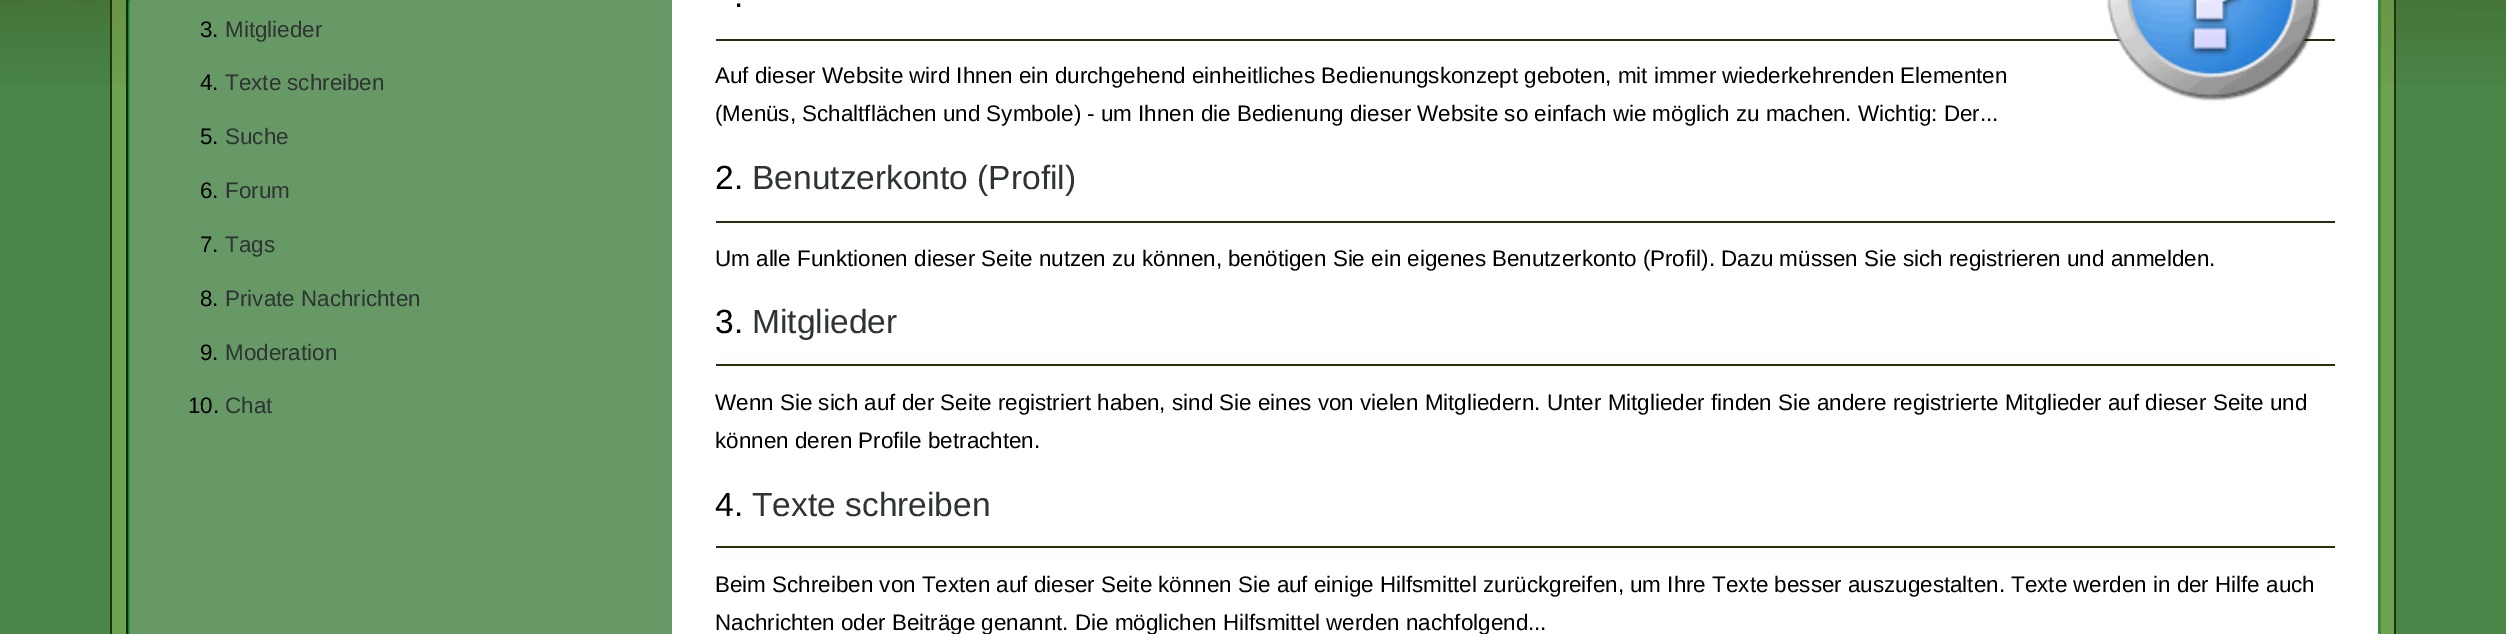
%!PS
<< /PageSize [2506 634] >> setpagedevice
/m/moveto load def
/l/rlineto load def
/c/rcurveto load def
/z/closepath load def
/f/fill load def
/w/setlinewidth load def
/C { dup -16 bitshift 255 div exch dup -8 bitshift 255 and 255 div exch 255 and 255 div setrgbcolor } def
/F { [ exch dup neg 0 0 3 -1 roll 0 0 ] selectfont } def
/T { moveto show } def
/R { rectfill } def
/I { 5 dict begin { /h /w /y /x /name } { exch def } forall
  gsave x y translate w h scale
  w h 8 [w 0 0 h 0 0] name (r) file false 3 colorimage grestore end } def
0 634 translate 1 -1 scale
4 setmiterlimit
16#4A8647 C
0 0 2506 634 R
16#6EA152 C
112 84 2282 550 R
(1.rgb) 0 0 2506 84 I
16#1B3704 C
2396 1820 m -1 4 -5 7 -9 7 c 4 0 7 -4 7 -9 c 0 -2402 l -1 -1 l 2 -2 l 1 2 l z f
110 -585 m 1 -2 l 2 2 l -1 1 l 0 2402 l 0 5 3 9 7 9 c -4 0 -8 -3 -9 -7 c z f
16#348F42 C
128 0 2 634 R
16#003300 C
2 w
127 -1 2252 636 rectstroke
16#348F42 C
2378 0 2 634 R
16#669966 C
130 0 542 634 R
/LiberationSans-Regular 22.4 F
16#000000 C
(3.) 200 37 T
16#2E3432 C
(Mitglieder) 225 37 T
16#000000 C
(4.) 200 90 T
16#2E3432 C
(Texte schreiben) 225 90 T
16#000000 C
(5.) 200 144 T
16#2E3432 C
(Suche) 225 144 T
16#000000 C
(6.) 200 198 T
16#2E3432 C
(Forum) 225 198 T
16#000000 C
(7.) 200 252 T
16#2E3432 C
(Tags) 225 252 T
16#000000 C
(8.) 200 306 T
16#2E3432 C
(Private Nachrichten) 225 306 T
16#000000 C
(9.) 200 360 T
16#2E3432 C
(Moderation) 225 360 T
16#000000 C
(10.) 188 413 T
16#2E3432 C
(Chat) 225 413 T
16#FFFFFF C
672 0 1706 634 R
16#21320C C
716 39 1619 2 R
/LiberationSans-Regular 33.5 F
16#000000 C
(.) 734 7 T
(2.rgb) 2106 0 215 102 I
/LiberationSans-Regular 22.4 F
(Auf dieser Website wird Ihnen ein durchgehend einheitliches Bedienungskonzept geboten, mit immer wiederkehrenden Elementen) 715 83 T
(\(Menüs, Schaltflächen und Symbole\) - um Ihnen die Bedienung dieser Website so einfach wie möglich zu machen. Wichtig: Der...) 715 121 T
16#21320C C
716 221 1619 2 R
/LiberationSans-Regular 33.5 F
16#000000 C
(2.) 715 189 T
16#2E3432 C
(Benutzerkonto \(Profil\)) 752 189 T
/LiberationSans-Regular 22.4 F
16#000000 C
(Um alle Funktionen dieser Seite nutzen zu können, benötigen Sie ein eigenes Benutzerkonto \(Profil\). Dazu müssen Sie sich registrieren und anmelden.) 715 266 T
16#21320C C
716 364 1619 2 R
/LiberationSans-Regular 33.5 F
16#000000 C
(3.) 715 333 T
16#2E3432 C
(Mitglieder) 752 333 T
/LiberationSans-Regular 22.4 F
16#000000 C
(Wenn Sie sich auf der Seite registriert haben, sind Sie eines von vielen Mitgliedern. Unter Mitglieder finden Sie andere registrierte Mitglieder auf dieser Seite und) 715 410 T
(können deren Profile betrachten.) 715 448 T
16#21320C C
716 546 1619 2 R
/LiberationSans-Regular 33.5 F
16#000000 C
(4.) 715 516 T
16#2E3432 C
(Texte schreiben) 752 516 T
/LiberationSans-Regular 22.4 F
16#000000 C
(Beim Schreiben von Texten auf dieser Seite können Sie auf einige Hilfsmittel zurückgreifen, um Ihre Texte besser auszugestalten. Texte werden in der Hilfe auch) 715 592 T
(Nachrichten oder Beiträge genannt. Die möglichen Hilfsmittel werden nachfolgend...) 715 630 T
showpage
